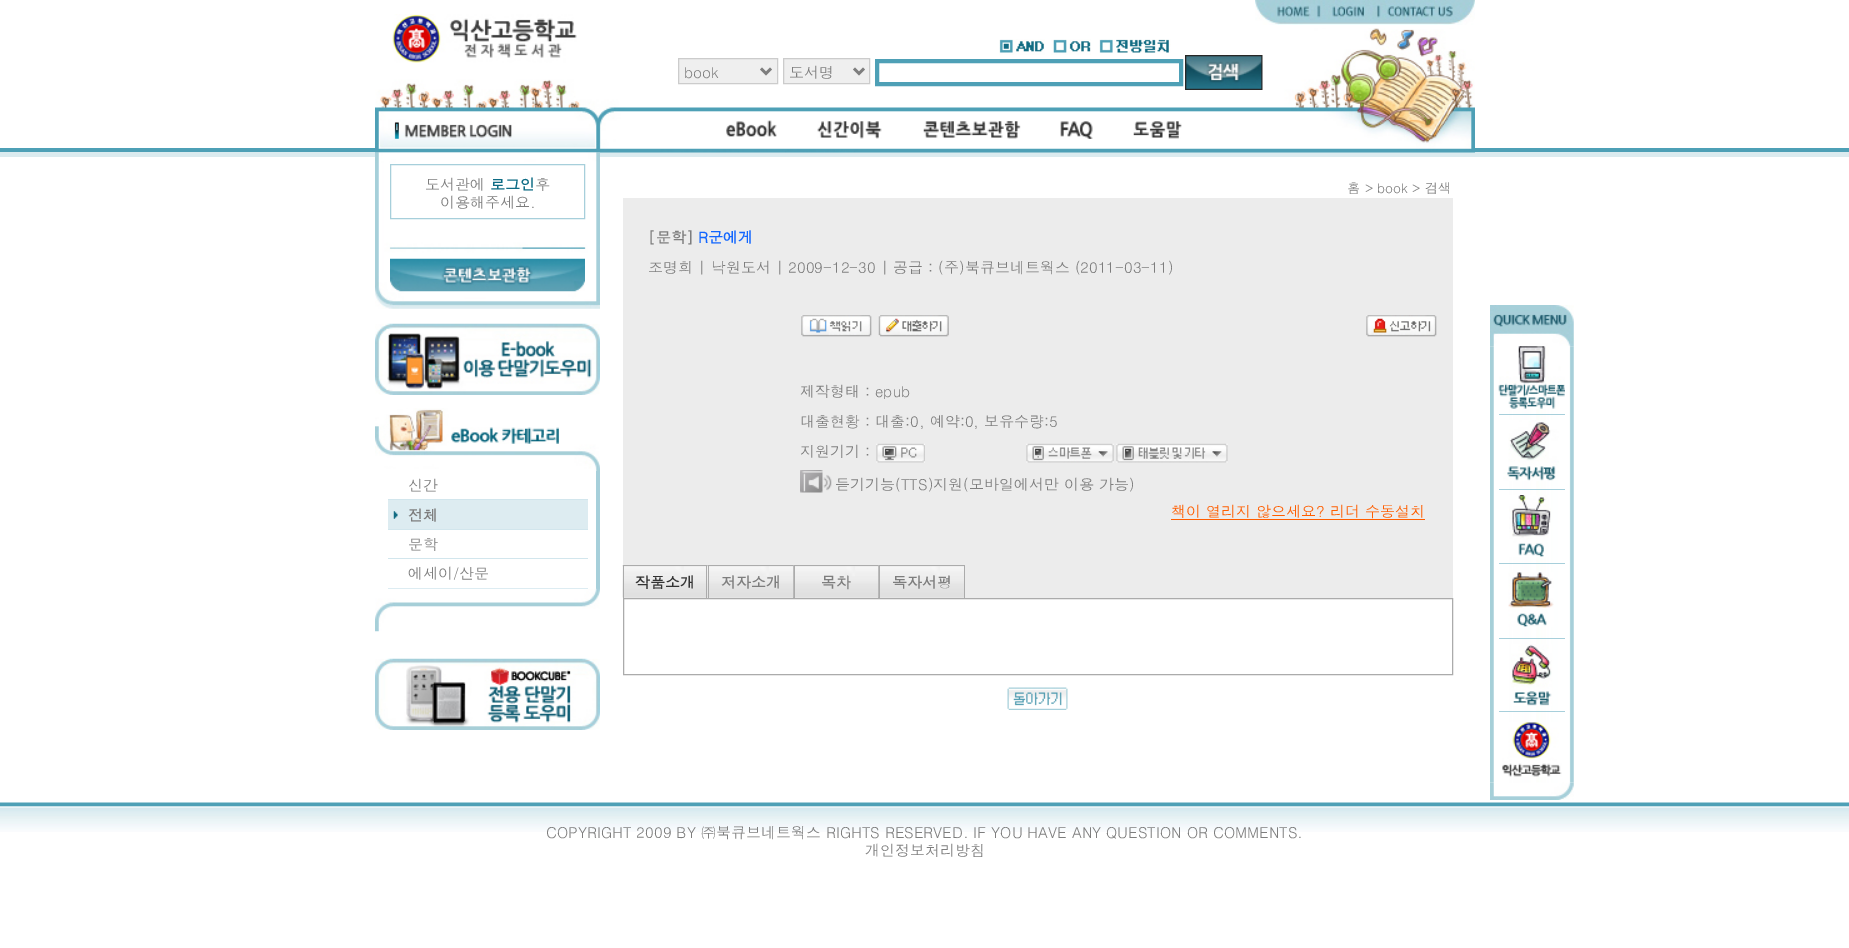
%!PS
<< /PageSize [1849 948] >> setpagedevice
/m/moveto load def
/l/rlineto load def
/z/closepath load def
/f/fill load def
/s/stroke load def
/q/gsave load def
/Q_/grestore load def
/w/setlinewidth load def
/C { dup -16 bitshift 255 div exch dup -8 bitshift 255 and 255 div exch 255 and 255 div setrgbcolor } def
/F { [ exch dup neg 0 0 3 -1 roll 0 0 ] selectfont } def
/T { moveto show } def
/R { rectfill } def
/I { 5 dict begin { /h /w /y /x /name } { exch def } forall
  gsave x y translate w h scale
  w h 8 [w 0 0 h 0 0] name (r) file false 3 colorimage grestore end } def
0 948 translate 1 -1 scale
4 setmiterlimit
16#FFFFFF C
0 0 1849 948 R
16#4EA0B6 C
0 148 1849 4 R
16#DBEBEF C
0 152 1849 5 R
(1.rgb) 375 28 1100 125 I
(2.rgb) 392 14 185 49 I
(3.rgb) 1255 0 220 25 I
(4.rgb) 1276 3 35 17 I
(5.rgb) 1328 4 42 15 I
(6.rgb) 1385 3 68 17 I
(7.rgb) 999 39 46 16 I
(8.rgb) 1051 39 40 16 I
(9.rgb) 1099 39 72 14 I
16#EFEFEF C
678.5 58.5 m 99 0 l 0 25 l -99 0 l z q f Q_
16#CCCCCC C
s
16#7E7E7E C
2.5 w
761 68.5 m 5 5 l 5 -5 l s
/Dotum-Regular 15 F
(book) 684 78 T
16#EFEFEF C
783.5 58.5 m 86 0 l 0 25 l -86 0 l z q f Q_
16#CCCCCC C
1 w
s
16#7E7E7E C
2.5 w
854 68.5 m 5 5 l 5 -5 l s
(도서명) 789 78 T
16#4EA0B6 C
4 w
877 61 304 23 rectstroke
(10.rgb) 1185 55 78 35 I
(11.rgb) 726 120 51 17 I
(12.rgb) 817 121 65 18 I
(13.rgb) 923 121 98 18 I
(14.rgb) 1060 121 33 18 I
(15.rgb) 1133 121 49 18 I
(16.rgb) 1490 305 84 42 I
(17.rgb) 1490 346 84 437 I
16#A7CFDB C
1499 414 66 1 R
(18.rgb) 1498 346 67 63 I
1499 489 66 1 R
(19.rgb) 1503 420 56 61 I
1499 563 66 1 R
(20.rgb) 1509 495 42 62 I
1499 638 66 1 R
(21.rgb) 1508 572 46 55 I
1499 711 66 1 R
(22.rgb) 1511 644 41 62 I
(23.rgb) 1502 722 60 55 I
(24.rgb) 1490 782 84 18 I
(25.rgb) 375 152 225 157 I
1 w
390.5 164.5 194 54 rectstroke
16#7E7E7E C
(도서관에) 425 190 T
/Dotum-Bold 15 F
16#0E6C85 C
(로그인) 490 190 T
/Dotum-Regular 15 F
16#7E7E7E C
(후) 535 190 T
(이용해주세요.) 440 208 T
(26.rgb) 390 258 195 34 I
(27.rgb) 375 323 225 72 I
(28.rgb) 375 408 225 64 I
(29.rgb) 451 427 108 17 I
16#A6CFDA C
596 471 4 118 R
16#D2E6ED C
388 499 200 1 R
16#7E7E7E C
(신간) 408 491 T
16#DDECF1 C
388 500 200 29 R
(30.rgb) 393 511 5 8 I
16#D2E6ED C
388 529 200 1 R
/Dotum-Bold 15 F
16#7E7E7E C
(전체) 408 521 T
16#D2E6ED C
388 558 200 1 R
/Dotum-Regular 15 F
16#7E7E7E C
(문학) 408 550 T
16#D2E6ED C
388 588 200 1 R
16#7E7E7E C
(에세이/산문) 408 579 T
(31.rgb) 375 588 225 44 I
(32.rgb) 375 658 225 72 I
/Dotum-Regular 13.25 F
(홈 > book > 검색) 1347 193 T
16#ECECEC C
623 198 830 400 R
/Dotum-Bold 15 F
16#7E7E7E C
([문학]) 648 243 T
16#1266FF C
(R군에게) 698 243 T
/Dotum-Regular 15 F
16#7E7E7E C
(조명희 | 낙원도서 | 2009-12-30 | 공급 : \(주\)북큐브네트웍스 \(2011-03-11\)) 648 273 T
(33.rgb) 801 315 71 22 I
(34.rgb) 878 315 71 22 I
(35.rgb) 1366 315 71 22 I
(제작형태 : epub) 800 397 T
(대출현황 : 대출:0, 예약:0, 보유수량:5) 800 427 T
(지원기기 :) 800 457 T
(36.rgb) 876 443 49 20 I
(37.rgb) 1026 443 88 20 I
(38.rgb) 1116 443 112 20 I
(39.rgb) 800 470 32 23 I
(듣기기능\(TTS\)지원\(모바일에서만 이용 가능\)) 835 490 T
16#FF5E00 C
(책이 열리지 않으세요? 리더 수동설치) 1171 517 T
1171 519 254 1 R
(40.rgb) 622 565 86 33 I
16#ABABAB C
623 565 85 1 R
706 565 1 33 R
623 565 1 33 R
/Dotum-Bold 15 F
16#333333 C
(작품소개) 635 588 T
(41.rgb) 707 565 86 33 I
16#ABABAB C
708 565 86 1 R
793 565 1 33 R
708 565 1 33 R
16#7E7E7E C
(저자소개) 721 588 T
(42.rgb) 793 565 85 33 I
16#ABABAB C
794 565 85 1 R
878 565 1 33 R
794 565 1 33 R
16#7E7E7E C
(목차) 821 588 T
(43.rgb) 878 565 86 33 I
16#ABABAB C
879 565 86 1 R
964 565 1 33 R
879 565 1 33 R
16#7E7E7E C
(독자서평) 892 588 T
16#ABABAB C
623.5 598.5 829 76 rectstroke
(44.rgb) 1007 687 61 23 I
(45.rgb) 0 802 1849 30 I
/Dotum-Regular 15 F
16#7E7E7E C
(COPYRIGHT 2009 BY ㈜북큐브네트웍스 RIGHTS RESERVED. IF YOU HAVE ANY QUESTION OR COMMENTS.) 546 838 T
(개인정보처리방침) 865 856 T
showpage
